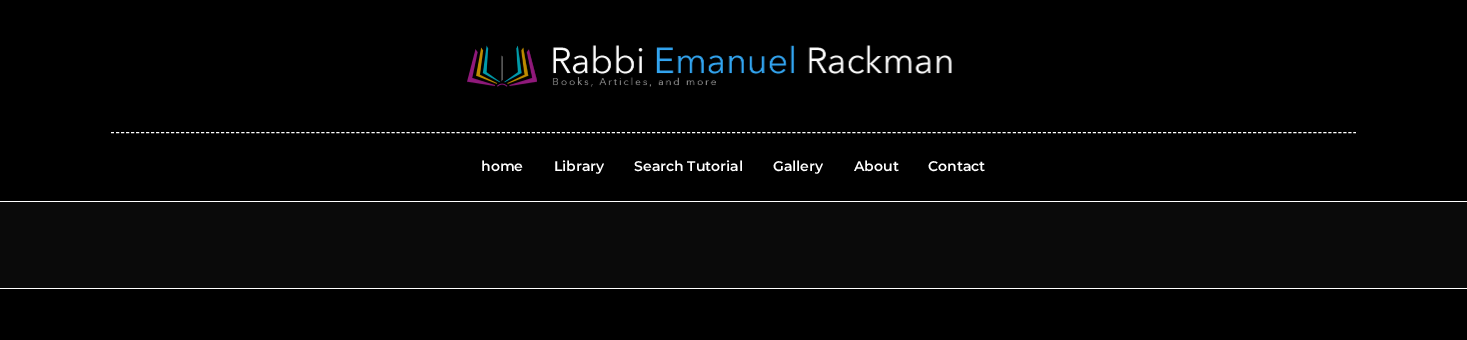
%!PS
<< /PageSize [1467 340] >> setpagedevice
/m/moveto load def
/l/rlineto load def
/s/stroke load def
/C { dup -16 bitshift 255 div exch dup -8 bitshift 255 and 255 div exch 255 and 255 div setrgbcolor } def
/F { [ exch dup neg 0 0 3 -1 roll 0 0 ] selectfont } def
/T { moveto show } def
/R { rectfill } def
/I { 5 dict begin { /h /w /y /x /name } { exch def } forall
  gsave x y translate w h scale
  w h 8 [w 0 0 h 0 0] name (r) file false 3 colorimage grestore end } def
0 340 translate 1 -1 scale
4 setmiterlimit
16#000000 C
0 0 1467 340 R
16#FFFFFF C
0 201 1467 1 R
(1.rgb) 467 45 485 42 I
[3 2.01] 0 setdash
111 132.5 m 1245 0 l s
/Montserrat-SemiBold 14 F
(home) 481 171 T
(Library) 554 171 T
(Search Tutorial) 634 171 T
(Gallery) 773 171 T
(About) 854 171 T
(Contact) 928 171 T
16#0A0A0A C
0 202 1467 86 R
16#FFFFFF C
0 288 1467 1 R
showpage
